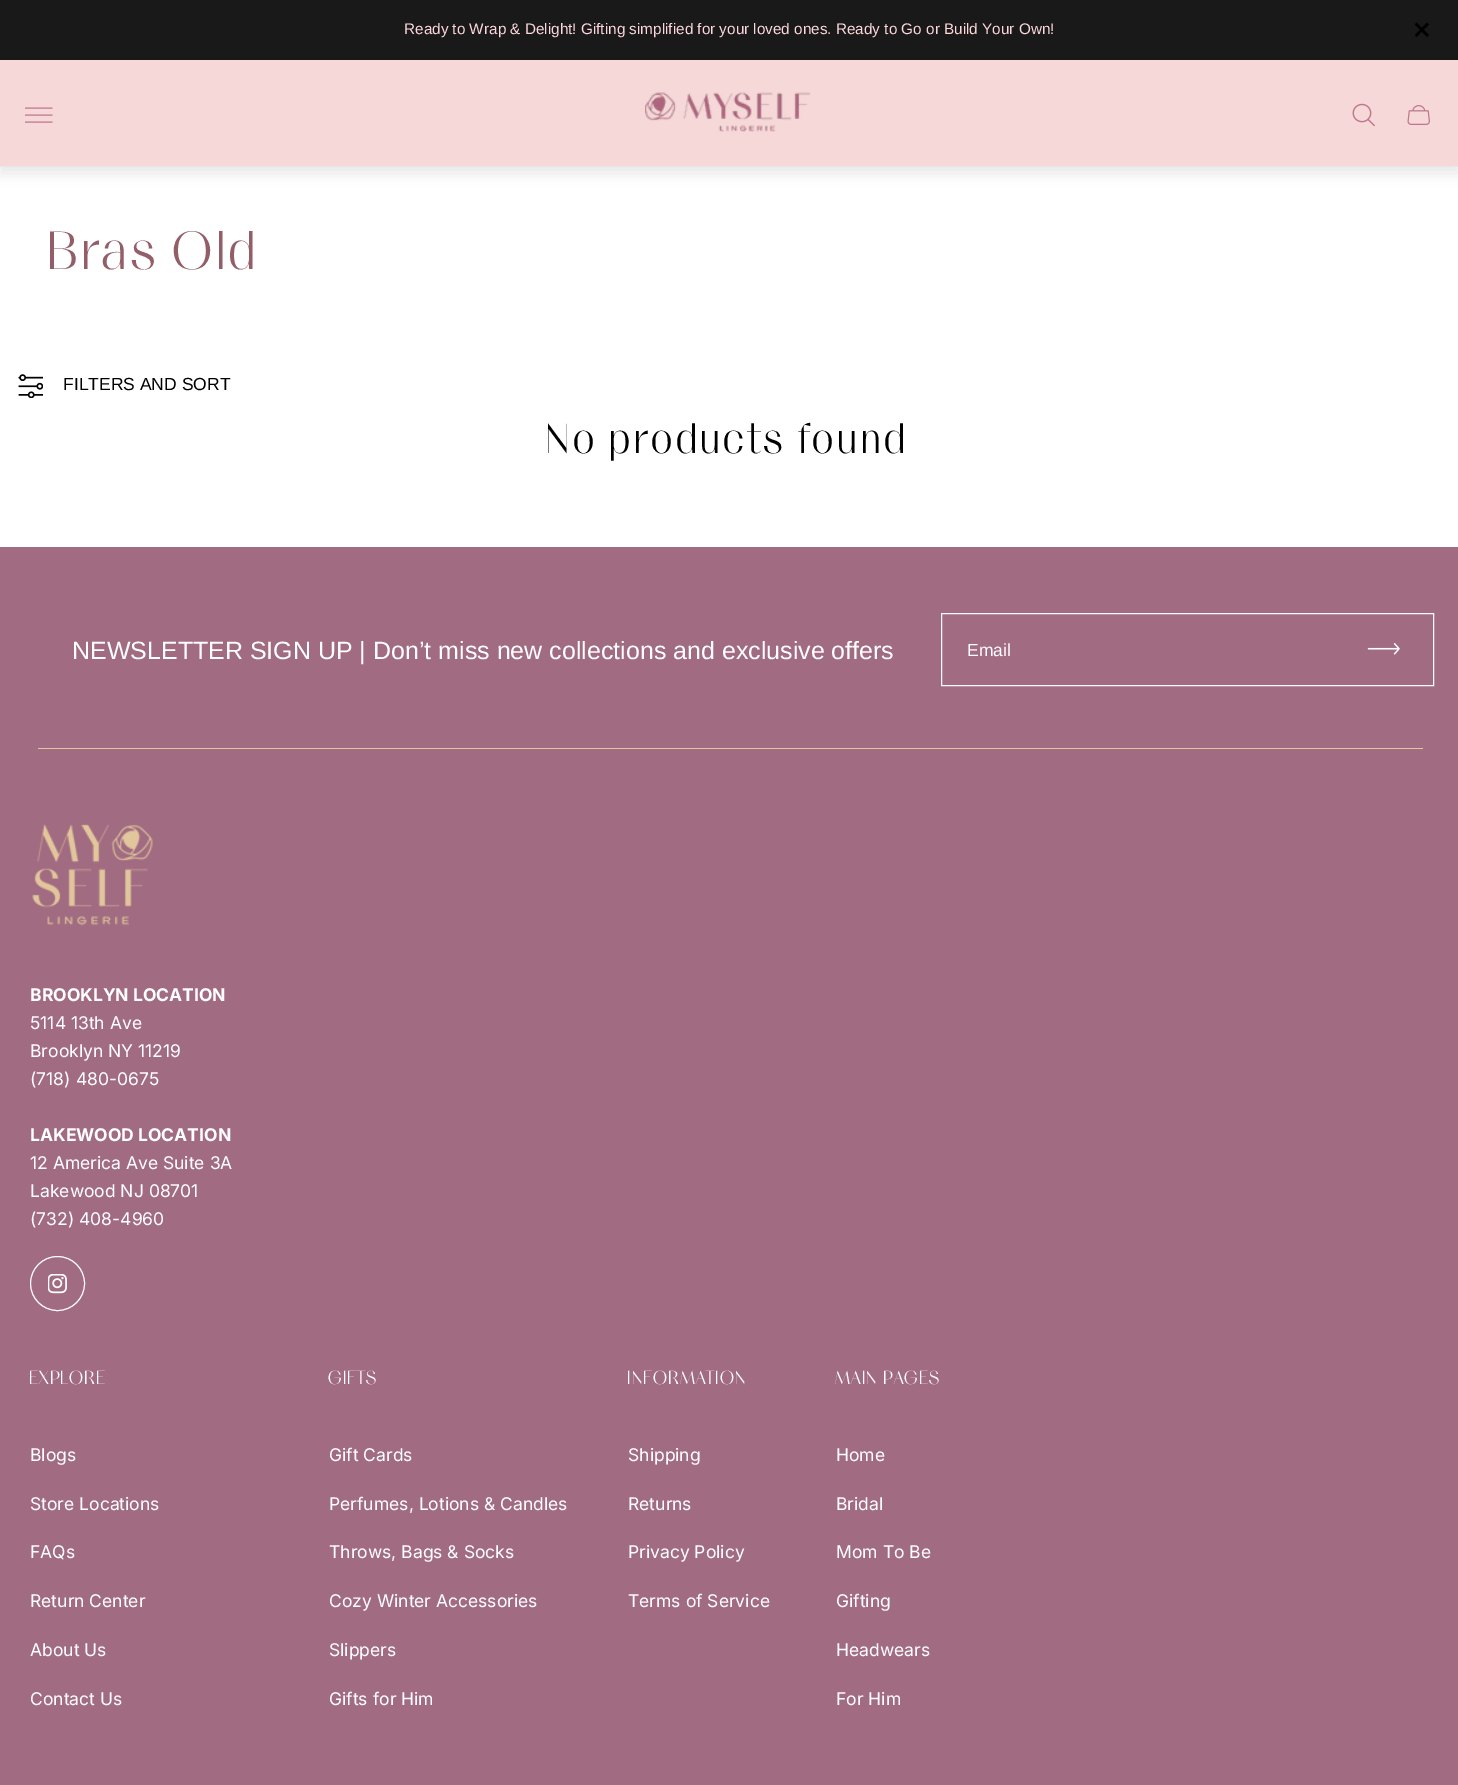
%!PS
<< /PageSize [1458 1785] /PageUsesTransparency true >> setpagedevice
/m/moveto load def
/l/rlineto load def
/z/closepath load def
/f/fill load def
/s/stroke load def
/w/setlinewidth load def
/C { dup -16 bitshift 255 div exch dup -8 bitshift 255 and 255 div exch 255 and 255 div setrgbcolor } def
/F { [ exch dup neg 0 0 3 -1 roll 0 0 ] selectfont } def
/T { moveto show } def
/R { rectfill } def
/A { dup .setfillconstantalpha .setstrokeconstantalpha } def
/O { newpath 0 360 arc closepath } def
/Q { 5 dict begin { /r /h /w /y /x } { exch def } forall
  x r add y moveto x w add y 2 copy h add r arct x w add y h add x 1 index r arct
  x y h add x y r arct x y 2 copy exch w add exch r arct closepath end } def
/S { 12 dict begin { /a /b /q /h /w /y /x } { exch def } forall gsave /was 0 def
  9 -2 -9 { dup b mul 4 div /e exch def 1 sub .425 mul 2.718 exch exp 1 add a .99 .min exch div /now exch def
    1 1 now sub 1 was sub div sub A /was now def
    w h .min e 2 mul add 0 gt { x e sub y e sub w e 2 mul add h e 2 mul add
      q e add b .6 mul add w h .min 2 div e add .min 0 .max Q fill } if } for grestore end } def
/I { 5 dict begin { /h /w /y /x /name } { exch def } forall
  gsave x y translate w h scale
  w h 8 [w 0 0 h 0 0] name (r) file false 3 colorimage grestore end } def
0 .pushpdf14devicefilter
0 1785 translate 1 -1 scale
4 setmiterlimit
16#FFFFFF C
0 0 1458 1785 R
16#191919 C
0 0 1458 60 R
/LiberationSans-Regular 15.3 F
16#FDD7DA C
(Ready to Wrap & Delight! Gifting simplified for your loved ones. Ready to Go or Build Your Own!) 404 34 T
16#000000 C
1427 22.5 m 2 2 l -12.5 12.5 l -1.5 -2 l z f
1415 24.5 m 1.5 -2 l 12.5 12.5 l -2 2 l z f
0 65 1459 108 0 7 .1 S
16#E6E6E6 C
0 166 1458 1 R
16#F6D8D9 C
0 60 1458 106 R
16#BF778F C
1.1 w
25 108 m 27.5 0 l 25 115 m 27.5 0 l 25 122 m 27.5 0 l s
(1.rgb) 645 92 166 40 I
(2.rgb) 1352 103 23 24 I
(3.rgb) 1407 105 23 20 I
/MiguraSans-Regular 49.5 F
16#935E68 C
(Bras Old) 50 269 T
(4.rgb) 18 374 25 24 I
/LiberationSans-Regular 17.5 F
16#000000 C
(FILTERS AND SORT) 63 390 T
/MiguraSans-Regular 38.75 F
548 453 m .75 0 (No products found) ashow
16#A16B82 C
0 547 1458 1238 R
/LiberationSans-Regular 25 F
16#FFFFFF C
(NEWSLETTER SIGN UP | Don’t miss new collections and exclusive offers) 72 659 T
16#FAFAFA C
1 w
941.5 613.5 492 72 rectstroke
/LiberationSans-Regular 17.5 F
16#FFFFFF C
(Email) 967 656 T
(5.rgb) 1367 643 33 12 I
16#DFC8A4 C
38 748 1385 1 R
(6.rgb) 32 824 121 102 I
/Inter-Bold 17.5 F
16#FFFFFF C
(BROOKLYN LOCATION) 30 1001 T
/Inter-Regular 17.5 F
(5114 13th Ave) 30 1029 T
(Brooklyn NY 11219) 30 1057 T
(\(718\) 480-0675) 30 1085 T
/Inter-Bold 17.5 F
(LAKEWOOD LOCATION) 30 1141 T
/Inter-Regular 17.5 F
(12 America Ave Suite 3A) 30 1169 T
(Lakewood NJ 08701) 30 1197 T
(\(732\) 408-4960) 30 1225 T
57.5 1283.5 27 O s
(7.rgb) 48 1274 19 20 I
/MiguraSans-Regular 17.5 F
(EXPLORE) 30 1384 T
/Inter-Regular 17.5 F
(Blogs) 30 1461 T
(Store Locations) 30 1510 T
(FAQs) 30 1558 T
(Return Center) 30 1607 T
(About Us) 30 1656 T
(Contact Us) 30 1705 T
/MiguraSans-Regular 17.5 F
(GIFTS) 329 1384 T
/Inter-Regular 17.5 F
(Gift Cards) 329 1461 T
(Perfumes, Lotions & Candles) 329 1510 T
(Throws, Bags & Socks) 329 1558 T
(Cozy Winter Accessories) 329 1607 T
(Slippers) 329 1656 T
(Gifts for Him) 329 1705 T
/MiguraSans-Regular 17.5 F
(INFORMATION) 628 1384 T
/Inter-Regular 17.5 F
(Shipping) 628 1461 T
(Returns) 628 1510 T
(Privacy Policy) 628 1558 T
(Terms of Service) 628 1607 T
/MiguraSans-Regular 17.5 F
(MAIN PAGES) 836 1384 T
/Inter-Regular 17.5 F
(Home) 836 1461 T
(Bridal) 836 1510 T
(Mom To Be) 836 1558 T
(Gifting) 836 1607 T
(Headwears) 836 1656 T
(For Him) 836 1705 T
.poppdf14devicefilter showpage
